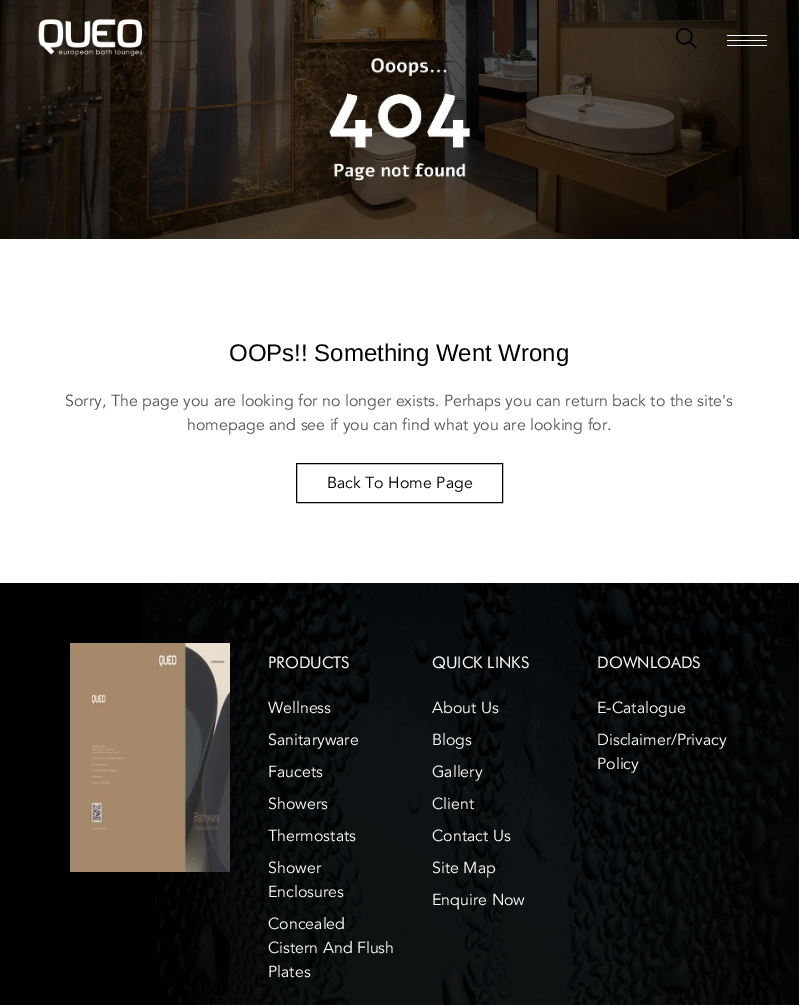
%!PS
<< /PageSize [799 1005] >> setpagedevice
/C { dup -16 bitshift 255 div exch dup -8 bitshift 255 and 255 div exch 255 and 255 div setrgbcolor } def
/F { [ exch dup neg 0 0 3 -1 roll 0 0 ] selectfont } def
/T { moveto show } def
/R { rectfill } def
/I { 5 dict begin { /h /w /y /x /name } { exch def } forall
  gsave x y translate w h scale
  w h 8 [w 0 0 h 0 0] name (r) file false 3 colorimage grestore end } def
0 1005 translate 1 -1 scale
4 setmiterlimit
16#FFFFFF C
0 0 799 1005 R
(3.rgb) 0 0 799 239 I
(1.rgb) 38 19 104 37 I
(2.rgb) 676 28 21 21 I
727 35 40 1 R
727 40 40 1 R
727 45 40 1 R
/LiberationSans-Regular 24 F
16#000000 C
(OOPs!! Something Went Wrong) 229 361 T
/Avenir-Regular 16 F
16#555555 C
(Sorry, The page you are looking for no longer exists. Perhaps you can return back to the site's) 65 406 T
(homepage and see if you can find what you are looking for.) 187 430 T
16#000000 C
296.5 463.5 206 39 rectstroke
(Back To Home Page) 327 488 T
0 583 799 422 R
(4.rgb) 140 583 659 422 I
(5.rgb) 70 643 160 229 I
/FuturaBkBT-Regular 16 F
16#FFFFFF C
(PRODUCTS) 268 668 T
/Avenir-Regular 16 F
(Wellness) 268 713 T
(Sanitaryware) 268 745 T
(Faucets) 268 777 T
(Showers) 268 809 T
(Thermostats) 268 841 T
(Shower) 268 873 T
(Enclosures) 268 897 T
(Concealed) 268 929 T
(Cistern And Flush) 268 953 T
(Plates) 268 977 T
/FuturaBkBT-Regular 16 F
(QUICK LINKS) 432 668 T
/Avenir-Regular 16 F
(About Us) 432 713 T
(Blogs) 432 745 T
(Gallery) 432 777 T
(Client) 432 809 T
(Contact Us) 432 841 T
(Site Map) 432 873 T
(Enquire Now) 432 905 T
/FuturaBkBT-Regular 16 F
(DOWNLOADS) 597 668 T
/Avenir-Regular 16 F
(E-Catalogue) 597 713 T
(Disclaimer/Privacy) 597 745 T
(Policy) 597 769 T
showpage
